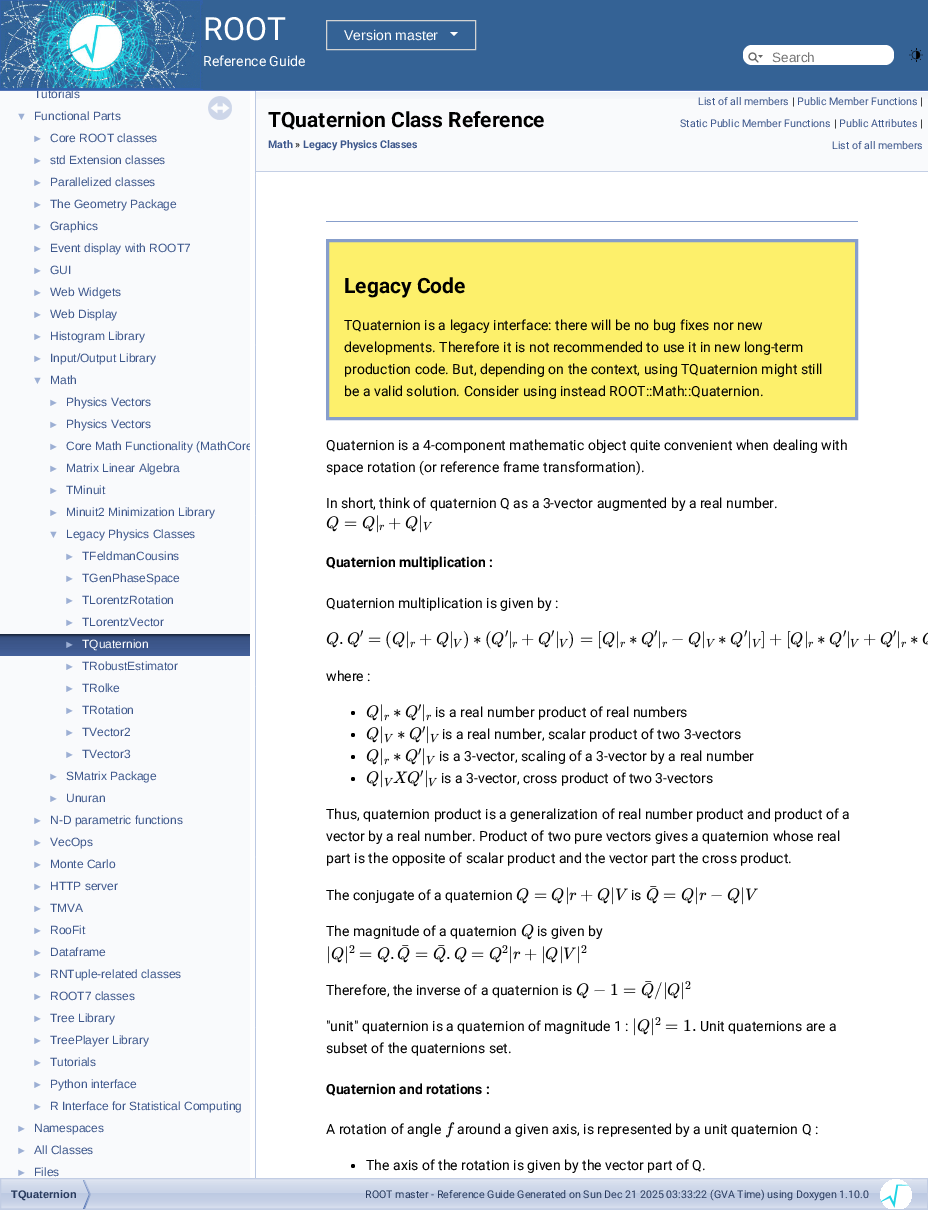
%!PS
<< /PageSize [928 1210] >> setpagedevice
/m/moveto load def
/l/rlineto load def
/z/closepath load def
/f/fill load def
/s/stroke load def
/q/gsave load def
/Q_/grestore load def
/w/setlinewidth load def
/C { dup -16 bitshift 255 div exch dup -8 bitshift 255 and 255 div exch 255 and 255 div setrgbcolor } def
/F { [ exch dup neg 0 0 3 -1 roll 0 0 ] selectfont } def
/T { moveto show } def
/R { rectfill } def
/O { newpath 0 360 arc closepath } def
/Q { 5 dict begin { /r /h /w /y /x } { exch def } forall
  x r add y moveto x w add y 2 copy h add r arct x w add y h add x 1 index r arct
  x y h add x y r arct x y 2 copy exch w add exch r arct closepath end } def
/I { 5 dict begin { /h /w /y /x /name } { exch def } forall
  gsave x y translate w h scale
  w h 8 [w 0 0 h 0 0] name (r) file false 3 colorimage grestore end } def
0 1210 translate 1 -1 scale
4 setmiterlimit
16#FFFFFF C
0 0 928 1210 R
16#5373B4 C
0 90 928 1 R
16#346295 C
203 0 725 90 R
(1.rgb) 0 0 203 90 I
/Roboto-Regular 32 F
16#FFFFFF C
(ROOT) 203 40 T
16#D3D3D3 C
326.5 20.5 149 29 rectstroke
/LiberationSans-Regular 14 F
16#FFFFFF C
(Version master) 344 40 T
450 32 m 8 0 l -4 4 l z f
/Roboto-Regular 14 F
(Reference Guide) 203 66 T
743 45 151 20 9 Q f
(2.rgb) 748 52 15 11 I
/LiberationSans-Regular 13.5 F
16#757575 C
(Search) 772 62 T
(3.rgb) 909 48 14 14 I
16#F9FAFC C
0 91 250 1087 R
q
0 91 250 1087 rectclip
/LiberationSans-Regular 12 F
16#3D578C C
(Tutorials) 34 98 T
Q_
/LiberationSans-Regular 11 F
16#9CAFD4 C
(▼) 16 120 T
/LiberationSans-Regular 12 F
16#3D578C C
(Functional Parts) 34 120 T
/LiberationSans-Regular 11 F
16#9CAFD4 C
(►) 32 142 T
/LiberationSans-Regular 12 F
16#3D578C C
(Core ROOT classes) 50 142 T
/LiberationSans-Regular 11 F
16#9CAFD4 C
(►) 32 164 T
/LiberationSans-Regular 12 F
16#3D578C C
(std Extension classes) 50 164 T
/LiberationSans-Regular 11 F
16#9CAFD4 C
(►) 32 186 T
/LiberationSans-Regular 12 F
16#3D578C C
(Parallelized classes) 50 186 T
/LiberationSans-Regular 11 F
16#9CAFD4 C
(►) 32 208 T
/LiberationSans-Regular 12 F
16#3D578C C
(The Geometry Package) 50 208 T
/LiberationSans-Regular 11 F
16#9CAFD4 C
(►) 32 230 T
/LiberationSans-Regular 12 F
16#3D578C C
(Graphics) 50 230 T
/LiberationSans-Regular 11 F
16#9CAFD4 C
(►) 32 252 T
/LiberationSans-Regular 12 F
16#3D578C C
(Event display with ROOT7) 50 252 T
/LiberationSans-Regular 11 F
16#9CAFD4 C
(►) 32 274 T
/LiberationSans-Regular 12 F
16#3D578C C
(GUI) 50 274 T
/LiberationSans-Regular 11 F
16#9CAFD4 C
(►) 32 296 T
/LiberationSans-Regular 12 F
16#3D578C C
(Web Widgets) 50 296 T
/LiberationSans-Regular 11 F
16#9CAFD4 C
(►) 32 318 T
/LiberationSans-Regular 12 F
16#3D578C C
(Web Display) 50 318 T
/LiberationSans-Regular 11 F
16#9CAFD4 C
(►) 32 340 T
/LiberationSans-Regular 12 F
16#3D578C C
(Histogram Library) 50 340 T
/LiberationSans-Regular 11 F
16#9CAFD4 C
(►) 32 362 T
/LiberationSans-Regular 12 F
16#3D578C C
(Input/Output Library) 50 362 T
/LiberationSans-Regular 11 F
16#9CAFD4 C
(▼) 32 384 T
/LiberationSans-Regular 12 F
16#3D578C C
(Math) 50 384 T
/LiberationSans-Regular 11 F
16#9CAFD4 C
(►) 48 406 T
/LiberationSans-Regular 12 F
16#3D578C C
(Physics Vectors) 66 406 T
/LiberationSans-Regular 11 F
16#9CAFD4 C
(►) 48 428 T
/LiberationSans-Regular 12 F
16#3D578C C
(Physics Vectors) 66 428 T
/LiberationSans-Regular 11 F
16#9CAFD4 C
(►) 48 450 T
q
0 91 250 1087 rectclip
/LiberationSans-Regular 12 F
16#3D578C C
(Core Math Functionality \(MathCore) 66 450 T
Q_
(►) 48 472 T
/LiberationSans-Regular 12 F
16#3D578C C
(Matrix Linear Algebra) 66 472 T
/LiberationSans-Regular 11 F
16#9CAFD4 C
(►) 48 494 T
/LiberationSans-Regular 12 F
16#3D578C C
(TMinuit) 66 494 T
/LiberationSans-Regular 11 F
16#9CAFD4 C
(►) 48 516 T
/LiberationSans-Regular 12 F
16#3D578C C
(Minuit2 Minimization Library) 66 516 T
/LiberationSans-Regular 11 F
16#9CAFD4 C
(▼) 48 538 T
/LiberationSans-Regular 12 F
16#3D578C C
(Legacy Physics Classes) 66 538 T
/LiberationSans-Regular 11 F
16#9CAFD4 C
(►) 64 560 T
/LiberationSans-Regular 12 F
16#3D578C C
(TFeldmanCousins) 82 560 T
/LiberationSans-Regular 11 F
16#9CAFD4 C
(►) 64 582 T
/LiberationSans-Regular 12 F
16#3D578C C
(TGenPhaseSpace) 82 582 T
/LiberationSans-Regular 11 F
16#9CAFD4 C
(►) 64 604 T
/LiberationSans-Regular 12 F
16#3D578C C
(TLorentzRotation) 82 604 T
/LiberationSans-Regular 11 F
16#9CAFD4 C
(►) 64 626 T
/LiberationSans-Regular 12 F
16#3D578C C
(TLorentzVector) 82 626 T
(4.rgb) 0 634 250 22 I
/LiberationSans-Regular 11 F
16#9CAFD4 C
(►) 64 648 T
/LiberationSans-Regular 12 F
16#FFFFFF C
(TQuaternion) 82 648 T
/LiberationSans-Regular 11 F
16#9CAFD4 C
(►) 64 670 T
/LiberationSans-Regular 12 F
16#3D578C C
(TRobustEstimator) 82 670 T
/LiberationSans-Regular 11 F
16#9CAFD4 C
(►) 64 692 T
/LiberationSans-Regular 12 F
16#3D578C C
(TRolke) 82 692 T
/LiberationSans-Regular 11 F
16#9CAFD4 C
(►) 64 714 T
/LiberationSans-Regular 12 F
16#3D578C C
(TRotation) 82 714 T
/LiberationSans-Regular 11 F
16#9CAFD4 C
(►) 64 736 T
/LiberationSans-Regular 12 F
16#3D578C C
(TVector2) 82 736 T
/LiberationSans-Regular 11 F
16#9CAFD4 C
(►) 64 758 T
/LiberationSans-Regular 12 F
16#3D578C C
(TVector3) 82 758 T
/LiberationSans-Regular 11 F
16#9CAFD4 C
(►) 48 780 T
/LiberationSans-Regular 12 F
16#3D578C C
(SMatrix Package) 66 780 T
/LiberationSans-Regular 11 F
16#9CAFD4 C
(►) 48 802 T
/LiberationSans-Regular 12 F
16#3D578C C
(Unuran) 66 802 T
/LiberationSans-Regular 11 F
16#9CAFD4 C
(►) 32 824 T
/LiberationSans-Regular 12 F
16#3D578C C
(N-D parametric functions) 50 824 T
/LiberationSans-Regular 11 F
16#9CAFD4 C
(►) 32 846 T
/LiberationSans-Regular 12 F
16#3D578C C
(VecOps) 50 846 T
/LiberationSans-Regular 11 F
16#9CAFD4 C
(►) 32 868 T
/LiberationSans-Regular 12 F
16#3D578C C
(Monte Carlo) 50 868 T
/LiberationSans-Regular 11 F
16#9CAFD4 C
(►) 32 890 T
/LiberationSans-Regular 12 F
16#3D578C C
(HTTP server) 50 890 T
/LiberationSans-Regular 11 F
16#9CAFD4 C
(►) 32 912 T
/LiberationSans-Regular 12 F
16#3D578C C
(TMVA) 50 912 T
/LiberationSans-Regular 11 F
16#9CAFD4 C
(►) 32 934 T
/LiberationSans-Regular 12 F
16#3D578C C
(RooFit) 50 934 T
/LiberationSans-Regular 11 F
16#9CAFD4 C
(►) 32 956 T
/LiberationSans-Regular 12 F
16#3D578C C
(Dataframe) 50 956 T
/LiberationSans-Regular 11 F
16#9CAFD4 C
(►) 32 978 T
/LiberationSans-Regular 12 F
16#3D578C C
(RNTuple-related classes) 50 978 T
/LiberationSans-Regular 11 F
16#9CAFD4 C
(►) 32 1000 T
/LiberationSans-Regular 12 F
16#3D578C C
(ROOT7 classes) 50 1000 T
/LiberationSans-Regular 11 F
16#9CAFD4 C
(►) 32 1022 T
/LiberationSans-Regular 12 F
16#3D578C C
(Tree Library) 50 1022 T
/LiberationSans-Regular 11 F
16#9CAFD4 C
(►) 32 1044 T
/LiberationSans-Regular 12 F
16#3D578C C
(TreePlayer Library) 50 1044 T
/LiberationSans-Regular 11 F
16#9CAFD4 C
(►) 32 1066 T
/LiberationSans-Regular 12 F
16#3D578C C
(Tutorials) 50 1066 T
/LiberationSans-Regular 11 F
16#9CAFD4 C
(►) 32 1088 T
/LiberationSans-Regular 12 F
16#3D578C C
(Python interface) 50 1088 T
/LiberationSans-Regular 11 F
16#9CAFD4 C
(►) 32 1110 T
/LiberationSans-Regular 12 F
16#3D578C C
(R Interface for Statistical Computing) 50 1110 T
/LiberationSans-Regular 11 F
16#9CAFD4 C
(►) 16 1132 T
/LiberationSans-Regular 12 F
16#3D578C C
(Namespaces) 34 1132 T
/LiberationSans-Regular 11 F
16#9CAFD4 C
(►) 16 1154 T
/LiberationSans-Regular 12 F
16#3D578C C
(All Classes) 34 1154 T
/LiberationSans-Regular 11 F
16#9CAFD4 C
(►) 16 1176 T
/LiberationSans-Regular 12 F
16#3D578C C
(Files) 34 1176 T
(5.rgb) 208 96 24 24 I
(6.rgb) 255 91 1 1087 I
16#F9FAFC C
256 99 672 72 R
(7.rgb) 256 91 672 8 I
16#C4CFE5 C
256 171 672 1 R
/Roboto-Bold 21 F
16#000000 C
(TQuaternion Class Reference) 268 127 T
/Roboto-Bold 10.65 F
16#3D578C C
(Math) 268 148 T
/Roboto-Regular 10.65 F
16#000000 C
(») 295 148 T
/Roboto-Bold 10.65 F
16#3D578C C
(Legacy Physics Classes) 303 148 T
/Roboto-Regular 10.65 F
(List of all members) 698 105 T
16#000000 C
(|) 792 105 T
16#3D578C C
(Public Member Functions) 797 105 T
16#000000 C
(|) 920 105 T
16#3D578C C
(Static Public Member Functions) 680 127 T
16#000000 C
(|) 834 127 T
16#3D578C C
(Public Attributes) 839 127 T
16#000000 C
(|) 920 127 T
16#3D578C C
(List of all members) 832 149 T
16#879ECB C
326 221 532 1 R
16#FDF06B C
327.5 240.5 m 529 0 l 0 178 l -529 0 l z q f Q_
16#879ECB C
3 w
s
/Roboto-Bold 21 F
16#000000 C
(Legacy Code) 344 293 T
/Roboto-Regular 14 F
(TQuaternion is a legacy interface: there will be no bug fixes nor new) 344 330 T
(developments. Therefore it is not recommended to use it in new long-term) 344 352 T
(production code. But, depending on the context, using TQuaternion might still) 344 374 T
(be a valid solution. Consider using instead ROOT::Math::Quaternion.) 344 396 T
(Quaternion is a 4-component mathematic object quite convenient when dealing with) 326 450 T
(space rotation \(or reference frame transformation\).) 326 472 T
(In short, think of quaternion Q as a 3-vector augmented by a real number.) 326 508 T
(8.rgb) 326 516 13 16 I
/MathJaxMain-Regular 17 F
(=) 344 528 T
(8.rgb) 362 516 13 16 I
(|) 375 528 T
(9.rgb) 379 524 6 7 I
(+) 388 528 T
(8.rgb) 405 516 13 16 I
(|) 418 528 T
(10.rgb) 423 521 10 10 I
/Roboto-Bold 14 F
(Quaternion multiplication :) 326 567 T
/Roboto-Regular 14 F
(Quaternion multiplication is given by :) 326 608 T
(8.rgb) 326 632 13 16 I
(8.rgb) 347 632 13 16 I
/MathJaxMain-Regular 12 F
(′) 360 637 T
/MathJaxMain-Regular 17 F
(=) 368 644 T
(\() 385 644 T
(8.rgb) 392 632 13 16 I
(|) 405 644 T
(9.rgb) 410 641 6 7 I
(+) 419 644 T
(8.rgb) 436 632 13 16 I
(|) 449 644 T
(10.rgb) 453 638 10 10 I
(\)) 463 644 T
(∗) 473 644 T
(\() 485 644 T
(8.rgb) 491 632 13 16 I
/MathJaxMain-Regular 12 F
(′) 505 637 T
/MathJaxMain-Regular 17 F
(|) 508 644 T
(9.rgb) 512 641 6 7 I
(+) 521 644 T
(8.rgb) 538 632 13 16 I
/MathJaxMain-Regular 12 F
(′) 551 637 T
/MathJaxMain-Regular 17 F
(|) 555 644 T
(10.rgb) 559 638 10 10 I
(\)) 568 644 T
(=) 580 644 T
([) 597 644 T
(8.rgb) 602 632 13 16 I
(|) 615 644 T
(9.rgb) 620 641 6 7 I
(∗) 629 644 T
(8.rgb) 641 632 13 16 I
/MathJaxMain-Regular 12 F
(′) 654 637 T
/MathJaxMain-Regular 17 F
(|) 657 644 T
(9.rgb) 662 641 6 7 I
(−) 671 644 T
(8.rgb) 688 632 13 16 I
(|) 701 644 T
(10.rgb) 706 638 10 10 I
(∗) 718 644 T
(8.rgb) 730 632 13 16 I
/MathJaxMain-Regular 12 F
(′) 744 637 T
/MathJaxMain-Regular 17 F
(|) 747 644 T
(10.rgb) 752 638 10 10 I
(]) 761 644 T
(+) 769 644 T
([) 786 644 T
(8.rgb) 790 632 13 16 I
(|) 804 644 T
(9.rgb) 808 641 6 7 I
(∗) 817 644 T
(8.rgb) 829 632 13 16 I
/MathJaxMain-Regular 12 F
(′) 843 637 T
/MathJaxMain-Regular 17 F
(|) 846 644 T
(10.rgb) 850 638 10 10 I
(+) 863 644 T
(8.rgb) 880 632 13 16 I
/MathJaxMain-Regular 12 F
(′) 893 637 T
/MathJaxMain-Regular 17 F
(|) 896 644 T
(9.rgb) 901 641 6 7 I
(∗) 910 644 T
(11.rgb) 922 632 6 13 I
(.) 339 644 T
/Roboto-Regular 14 F
(where :) 326 681 T
353 713 2 O f
(8.rgb) 366 705 13 16 I
/MathJaxMain-Regular 17 F
(|) 379 717 T
(9.rgb) 384 714 6 7 I
(∗) 393 717 T
(8.rgb) 405 705 13 16 I
/MathJaxMain-Regular 12 F
(′) 418 711 T
/MathJaxMain-Regular 17 F
(|) 421 717 T
(9.rgb) 426 714 6 7 I
/Roboto-Regular 14 F
(is a real number product of real numbers) 435 717 T
353 735 2 O f
(8.rgb) 366 727 13 16 I
/MathJaxMain-Regular 17 F
(|) 379 739 T
(10.rgb) 384 733 10 10 I
(∗) 397 739 T
(8.rgb) 409 727 13 16 I
/MathJaxMain-Regular 12 F
(′) 422 733 T
/MathJaxMain-Regular 17 F
(|) 425 739 T
(10.rgb) 430 733 10 10 I
/Roboto-Regular 14 F
(is a real number, scalar product of two 3-vectors) 442 739 T
353 757 2 O f
(8.rgb) 366 749 13 16 I
/MathJaxMain-Regular 17 F
(|) 379 761 T
(9.rgb) 384 758 6 7 I
(∗) 393 761 T
(8.rgb) 405 749 13 16 I
/MathJaxMain-Regular 12 F
(′) 418 755 T
/MathJaxMain-Regular 17 F
(|) 421 761 T
(10.rgb) 426 755 10 10 I
/Roboto-Regular 14 F
(is a 3-vector, scaling of a 3-vector by a real number) 439 761 T
353 779 2 O f
(8.rgb) 366 771 13 16 I
/MathJaxMain-Regular 17 F
(|) 379 783 T
(10.rgb) 384 777 10 10 I
(12.rgb) 393 771 15 12 I
(13.rgb) 407 771 13 16 I
/MathJaxMain-Regular 12 F
(′) 420 777 T
/MathJaxMain-Regular 17 F
(|) 424 783 T
(10.rgb) 428 777 10 10 I
/Roboto-Regular 14 F
(is a 3-vector, cross product of two 3-vectors) 441 783 T
(Thus, quaternion product is a generalization of real number product and product of a) 326 819 T
(vector by a real number. Product of two pure vectors gives a quaternion whose real) 326 841 T
(part is the opposite of scalar product and the vector part the cross product.) 326 863 T
(The conjugate of a quaternion) 326 900 T
(8.rgb) 516 888 13 16 I
/MathJaxMain-Regular 17 F
(=) 534 900 T
(8.rgb) 551 888 13 16 I
(|) 565 900 T
(14.rgb) 569 892 8 9 I
(+) 580 900 T
(8.rgb) 597 888 13 16 I
(|) 610 900 T
(15.rgb) 615 888 13 13 I
/Roboto-Regular 14 F
(is) 631 900 T
/MathJaxMain-Regular 17 F
(¯) 649 896 T
(8.rgb) 646 888 13 16 I
(=) 663 900 T
(8.rgb) 681 888 13 16 I
(|) 694 900 T
(14.rgb) 699 892 8 9 I
(−) 710 900 T
(8.rgb) 727 888 13 16 I
(|) 740 900 T
(15.rgb) 745 888 13 13 I
/Roboto-Regular 14 F
(The magnitude of a quaternion) 326 936 T
(8.rgb) 521 924 13 16 I
(is given by) 537 936 T
/MathJaxMain-Regular 17 F
(|) 326 959 T
(8.rgb) 331 947 13 16 I
(|) 344 959 T
/MathJaxMain-Regular 12 F
(2) 349 953 T
/MathJaxMain-Regular 17 F
(=) 359 959 T
(8.rgb) 377 947 13 16 I
(¯) 401 955 T
(8.rgb) 397 947 13 16 I
(=) 415 959 T
(¯) 437 955 T
(8.rgb) 433 947 13 16 I
(8.rgb) 454 947 13 16 I
(=) 471 959 T
(8.rgb) 489 947 13 16 I
/MathJaxMain-Regular 12 F
(2) 502 953 T
/MathJaxMain-Regular 17 F
(|) 508 959 T
(14.rgb) 513 951 8 9 I
(+) 524 959 T
(|) 541 959 T
(8.rgb) 545 947 13 16 I
(|) 559 959 T
(15.rgb) 563 947 13 13 I
(|) 576 959 T
/MathJaxMain-Regular 12 F
(2) 581 953 T
/MathJaxMain-Regular 17 F
(.) 390 959 T
(.) 446 959 T
/Roboto-Regular 14 F
(Therefore, the inverse of a quaternion is) 326 995 T
(8.rgb) 576 983 13 16 I
/MathJaxMain-Regular 17 F
(−) 593 995 T
(1) 610 995 T
(=) 623 995 T
(¯) 644 991 T
(8.rgb) 641 983 13 16 I
(/|) 654 995 T
(8.rgb) 667 983 13 16 I
(|) 680 995 T
/MathJaxMain-Regular 12 F
(2) 685 989 T
/Roboto-Regular 14 F
("unit" quaternion is a quaternion of magnitude 1 :) 326 1031 T
/MathJaxMain-Regular 17 F
(|) 632 1031 T
(8.rgb) 637 1019 13 16 I
(|) 650 1031 T
/MathJaxMain-Regular 12 F
(2) 655 1025 T
/MathJaxMain-Regular 17 F
(=) 665 1031 T
(1.) 683 1031 T
/Roboto-Regular 14 F
(Unit quaternions are a) 700 1031 T
(subset of the quaternions set.) 326 1053 T
/Roboto-Bold 14 F
(Quaternion and rotations :) 326 1094 T
/Roboto-Regular 14 F
(A rotation of angle) 326 1134 T
(16.rgb) 445 1122 10 16 I
(around a given axis, is represented by a unit quaternion Q :) 457 1134 T
353 1166 2 O f
(The axis of the rotation is given by the vector part of Q.) 366 1170 T
(17.rgb) 1 1179 926 30 I
16#C2CDE4 C
1 w
.5 1178.5 927 31 rectstroke
(18.rgb) 83 1180 8 29 I
/LiberationSans-Bold 11 F
16#283A5D C
(TQuaternion) 11 1198 T
/Roboto-Regular 10.65 F
(ROOT master - Reference Guide Generated on Sun Dec 21 2025 03:33:22 \(GVA Time\) using Doxygen 1.10.0) 365 1198 T
(19.rgb) 880 1179 32 30 I
showpage
